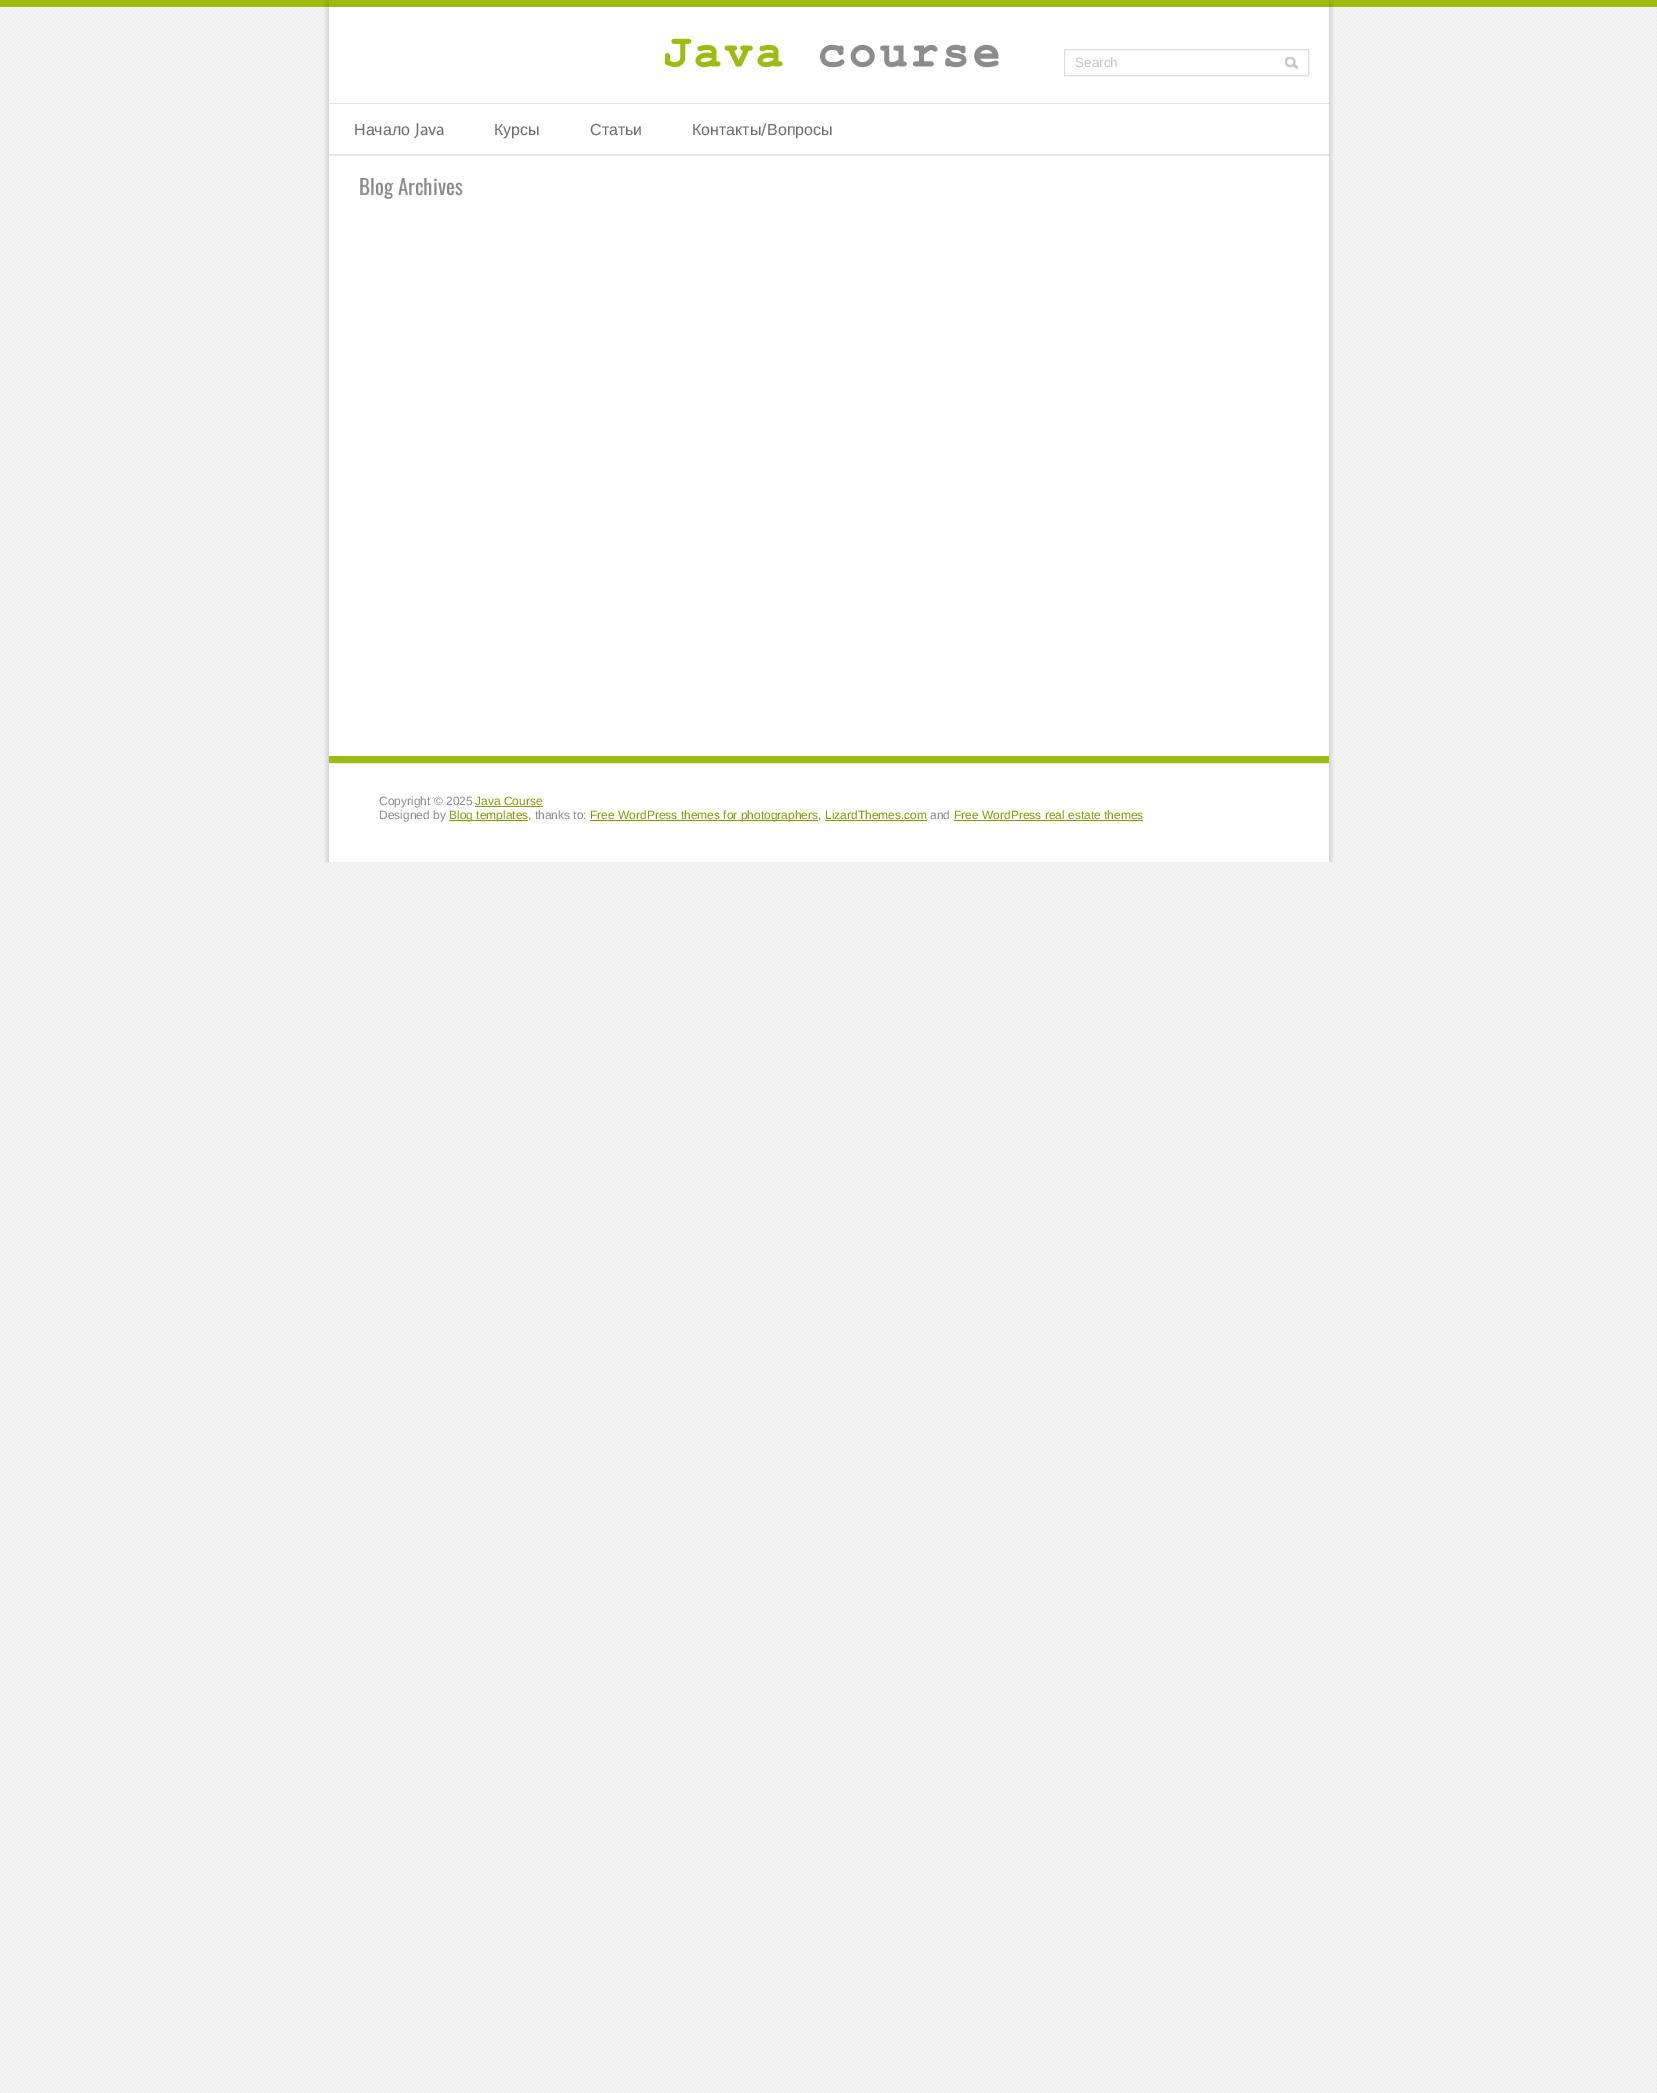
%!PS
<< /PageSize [1657 2093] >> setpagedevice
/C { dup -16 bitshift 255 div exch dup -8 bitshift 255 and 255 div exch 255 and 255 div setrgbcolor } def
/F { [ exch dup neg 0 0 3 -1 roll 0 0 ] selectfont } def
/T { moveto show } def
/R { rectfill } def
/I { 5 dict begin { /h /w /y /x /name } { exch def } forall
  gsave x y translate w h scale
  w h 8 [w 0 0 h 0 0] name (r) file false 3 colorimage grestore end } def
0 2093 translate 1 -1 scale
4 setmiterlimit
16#FFFFFF C
0 0 1657 2093 R
(1.rgb) 0 7 1657 2086 I
16#9DBC11 C
0 0 1657 7 R
(2.rgb) 324 0 1010 155 I
(3.rgb) 325 0 1008 7 I
(4.rgb) 665 38 334 30 I
16#DEDEDE C
1064.5 49.5 244 26 rectstroke
/LiberationSans-Regular 13.5 F
16#C3C3C3 C
(Search) 1075 67 T
(5.rgb) 1285 57 13 12 I
16#E5E5E5 C
329 103 1000 1 R
329 154 1000 1 R
/LiberationSans-Regular 16 F
16#6C6C6C C
(Начало) 354 135 T
/ExpletusSans-Regular 16 F
(Java) 414 135 T
/LiberationSans-Regular 16 F
(Курсы) 494 135 T
(Статьи) 590 135 T
(Контакты) 692 135 T
/ExpletusSans-Regular 16 F
(/) 761 135 T
/LiberationSans-Regular 16 F
(Вопросы) 767 135 T
(6.rgb) 324 155 1010 1 I
(7.rgb) 324 156 1010 600 I
/Oswald-Regular 21 F
16#8A8A8A C
(Blog Archives) 359 195 T
(8.rgb) 324 756 1010 7 I
(9.rgb) 324 763 1010 99 I
16#E5E5E5 C
329 763 1000 1 R
/LiberationSans-Regular 12 F
16#8A8A8A C
(Copyright © 2025) 379 805 T
16#809C00 C
(Java Course) 475 805 T
475 806 68 1 R
16#8A8A8A C
(Designed by) 379 819 T
16#809C00 C
449 820 79 1 R
(Blog templates) 449 819 T
16#8A8A8A C
(, thanks to:) 528 819 T
16#809C00 C
590 820 228 1 R
(Free WordPress themes for photographers) 590 819 T
16#8A8A8A C
(,) 818 819 T
16#809C00 C
(LizardThemes.com) 825 819 T
825 820 102 1 R
16#8A8A8A C
(and) 930 819 T
16#809C00 C
(Free WordPress real estate themes) 954 819 T
954 820 189 1 R
showpage
